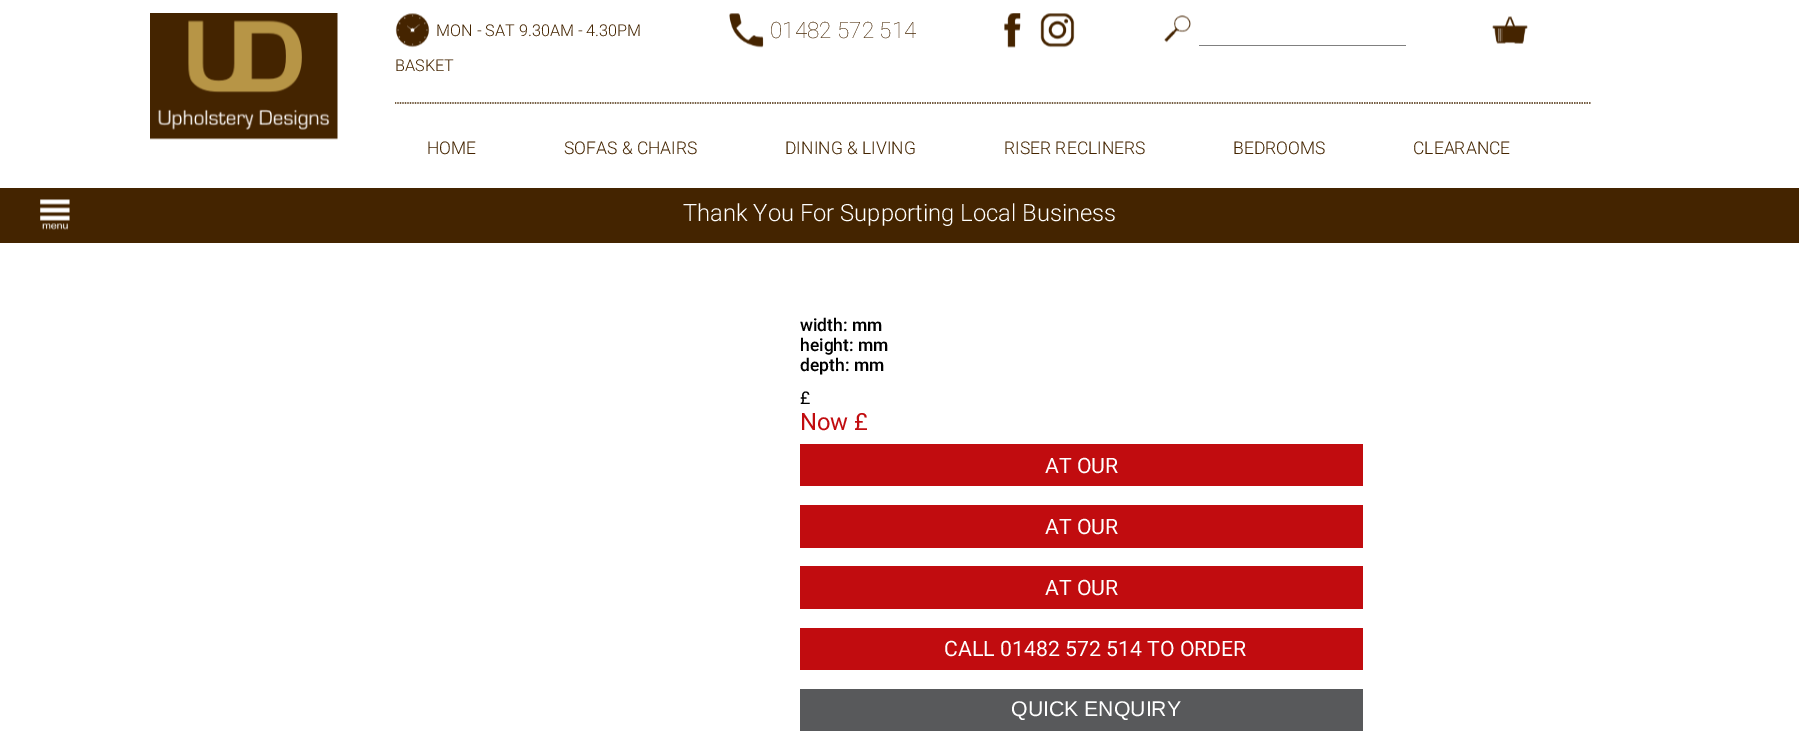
%!PS
<< /PageSize [1799 753] >> setpagedevice
/m/moveto load def
/l/rlineto load def
/s/stroke load def
/w/setlinewidth load def
/C { dup -16 bitshift 255 div exch dup -8 bitshift 255 and 255 div exch 255 and 255 div setrgbcolor } def
/F { [ exch dup neg 0 0 3 -1 roll 0 0 ] selectfont } def
/T { moveto show } def
/R { rectfill } def
/I { 5 dict begin { /h /w /y /x /name } { exch def } forall
  gsave x y translate w h scale
  w h 8 [w 0 0 h 0 0] name (r) file false 3 colorimage grestore end } def
0 753 translate 1 -1 scale
4 setmiterlimit
16#FFFFFF C
0 0 1799 753 R
(1.rgb) 150 13 188 127 I
16#442400 C
1.2 w
[1.25 1.25] 0 setdash
395 103 m 1197.5 0 l s
(2.rgb) 395 13 35 35 I
/Roboto-Light 16.25 F
(MON - SAT 9.30AM - 4.30PM) 436 36 T
(3.rgb) 729 13 35 35 I
/Roboto-Thin 22.5 F
(01482 572 514) 770 38 T
(4.rgb) 1004 13 17 35 I
(5.rgb) 1040 13 35 35 I
(6.rgb) 1164 15 27 28 I
16#808080 C
1199 45 207 1 R
(7.rgb) 1492 16 36 28 I
/Roboto-Light 16.25 F
16#442400 C
(BASKET) 395 71 T
/Roboto-Light 17.5 F
(HOME) 427 154 T
(SOFAS & CHAIRS) 564 154 T
(DINING & LIVING) 785 154 T
(RISER RECLINERS) 1004 154 T
(BEDROOMS) 1233 154 T
(CLEARANCE) 1413 154 T
0 188 1799 55 R
(8.rgb) 40 199 30 31 I
/Roboto-Light 23.75 F
16#FFFFFF C
(Thank You For Supporting Local Business) 683 221 T
/Roboto-Medium 17.5 F
16#000000 C
(width: mm) 800 331 T
(height: mm) 800 351 T
(depth: mm) 800 371 T
/Roboto-Regular 17.5 F
(£) 800 404 T
/Roboto-Regular 23.75 F
16#C10C0F C
(Now £) 800 430 T
800 444 563 42 R
/Roboto-Regular 21.25 F
16#FFFFFF C
(AT OUR) 1045 473 T
16#C10C0F C
800 505 563 43 R
16#FFFFFF C
(AT OUR) 1045 534 T
16#C10C0F C
800 566 563 43 R
16#FFFFFF C
(AT OUR) 1045 595 T
16#C10C0F C
800 628 563 42 R
16#FFFFFF C
(CALL 01482 572 514 TO ORDER) 944 656 T
16#58595B C
800 689 563 42 R
/LiberationSans-Regular 21.25 F
16#FFFFFF C
(QUICK ENQUIRY) 1011 716 T
showpage
